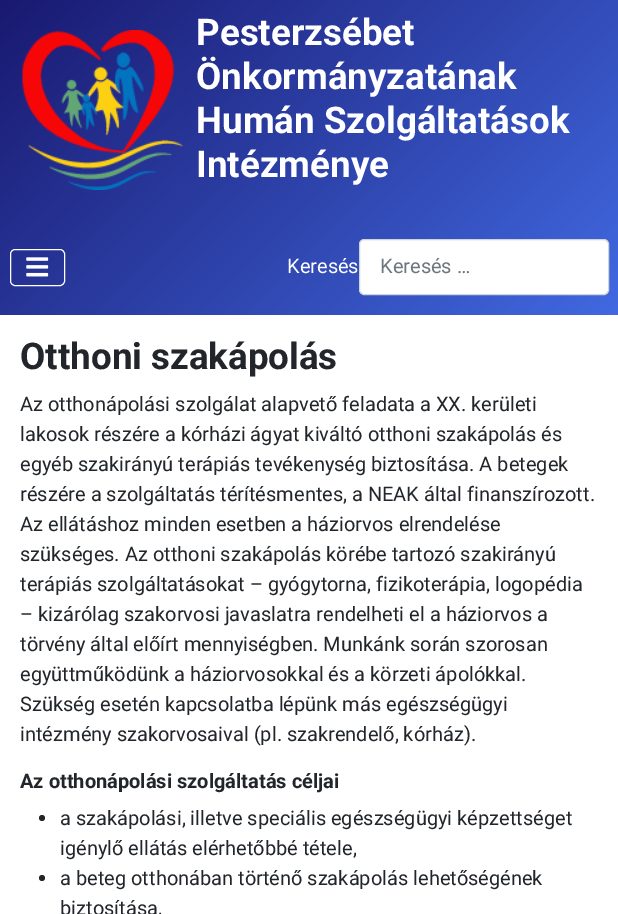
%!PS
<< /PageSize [618 914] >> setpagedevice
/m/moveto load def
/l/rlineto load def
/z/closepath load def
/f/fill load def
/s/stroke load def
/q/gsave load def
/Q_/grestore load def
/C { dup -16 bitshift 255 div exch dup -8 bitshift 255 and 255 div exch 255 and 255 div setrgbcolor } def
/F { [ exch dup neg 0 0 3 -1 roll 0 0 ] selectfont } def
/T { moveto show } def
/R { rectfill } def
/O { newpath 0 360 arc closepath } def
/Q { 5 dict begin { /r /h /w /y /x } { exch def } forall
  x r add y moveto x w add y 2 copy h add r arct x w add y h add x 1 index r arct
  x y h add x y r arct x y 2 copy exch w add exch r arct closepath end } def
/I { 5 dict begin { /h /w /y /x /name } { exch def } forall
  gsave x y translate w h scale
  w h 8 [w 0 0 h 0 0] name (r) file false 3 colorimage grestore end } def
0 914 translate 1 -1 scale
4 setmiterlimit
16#FFFFFF C
0 0 618 914 R
q 0 0 m 618 0 l 0 315 l -618 0 l z clip newpath
<< /ShadingType 2 /ColorSpace /DeviceRGB /Coords [76 -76 543 391] /Extend [true true] /Function << /FunctionType 2 /Domain [0 1] /C0 [.098 .098 .439] /C1 [.255 .412 .882] /N 1 >> >> shfill Q_
(1.rgb) 22 30 161 160 I
/Roboto-Bold 36.75 F
(Pesterzsébet) 196 45 T
(Önkormányzatának) 196 89 T
(Humán Szolgáltatások) 196 133 T
(Intézménye) 196 177 T
10.5 249.5 54 36 4.5 Q s
(2.rgb) 26 257 23 20 I
/Roboto-Regular 20 F
(Keresés) 287 273 T
359.5 239.5 249 55 4.5 Q q f Q_
16#CED4DA C
s
16#6D757E C
(Keresés …) 380 273 T
/Roboto-Bold 36.75 F
16#22262A C
(Otthoni szakápolás) 20 369 T
/Roboto-Regular 20 F
(Az otthonápolási szolgálat alapvető feladata a XX. kerületi) 20 411 T
(lakosok részére a kórházi ágyat kiváltó otthoni szakápolás és) 20 441 T
(egyéb szakirányú terápiás tevékenység biztosítása. A betegek) 20 471 T
(részére a szolgáltatás térítésmentes, a NEAK által finanszírozott.) 20 501 T
(Az ellátáshoz minden esetben a háziorvos elrendelése) 20 531 T
(szükséges. Az otthoni szakápolás körébe tartozó szakirányú) 20 561 T
(terápiás szolgáltatásokat – gyógytorna, fizikoterápia, logopédia) 20 591 T
(– kizárólag szakorvosi javaslatra rendelheti el a háziorvos a) 20 621 T
(törvény által előírt mennyiségben. Munkánk során szorosan) 20 651 T
(együttműködünk a háziorvosokkal és a körzeti ápolókkal.) 20 681 T
(Szükség esetén kapcsolatba lépünk más egészségügyi) 20 711 T
(intézmény szakorvosaival \(pl. szakrendelő, kórház\).) 20 741 T
/Roboto-Bold 20 F
(Az otthonápolási szolgáltatás céljai) 20 788 T
42 818 3 O f
/Roboto-Regular 20 F
(a szakápolási, illetve speciális egészségügyi képzettséget) 60 825 T
(igénylő ellátás elérhetőbbé tétele,) 60 855 T
42 878 3 O f
(a beteg otthonában történő szakápolás lehetőségének) 60 885 T
(biztosítása,) 60 915 T
showpage
